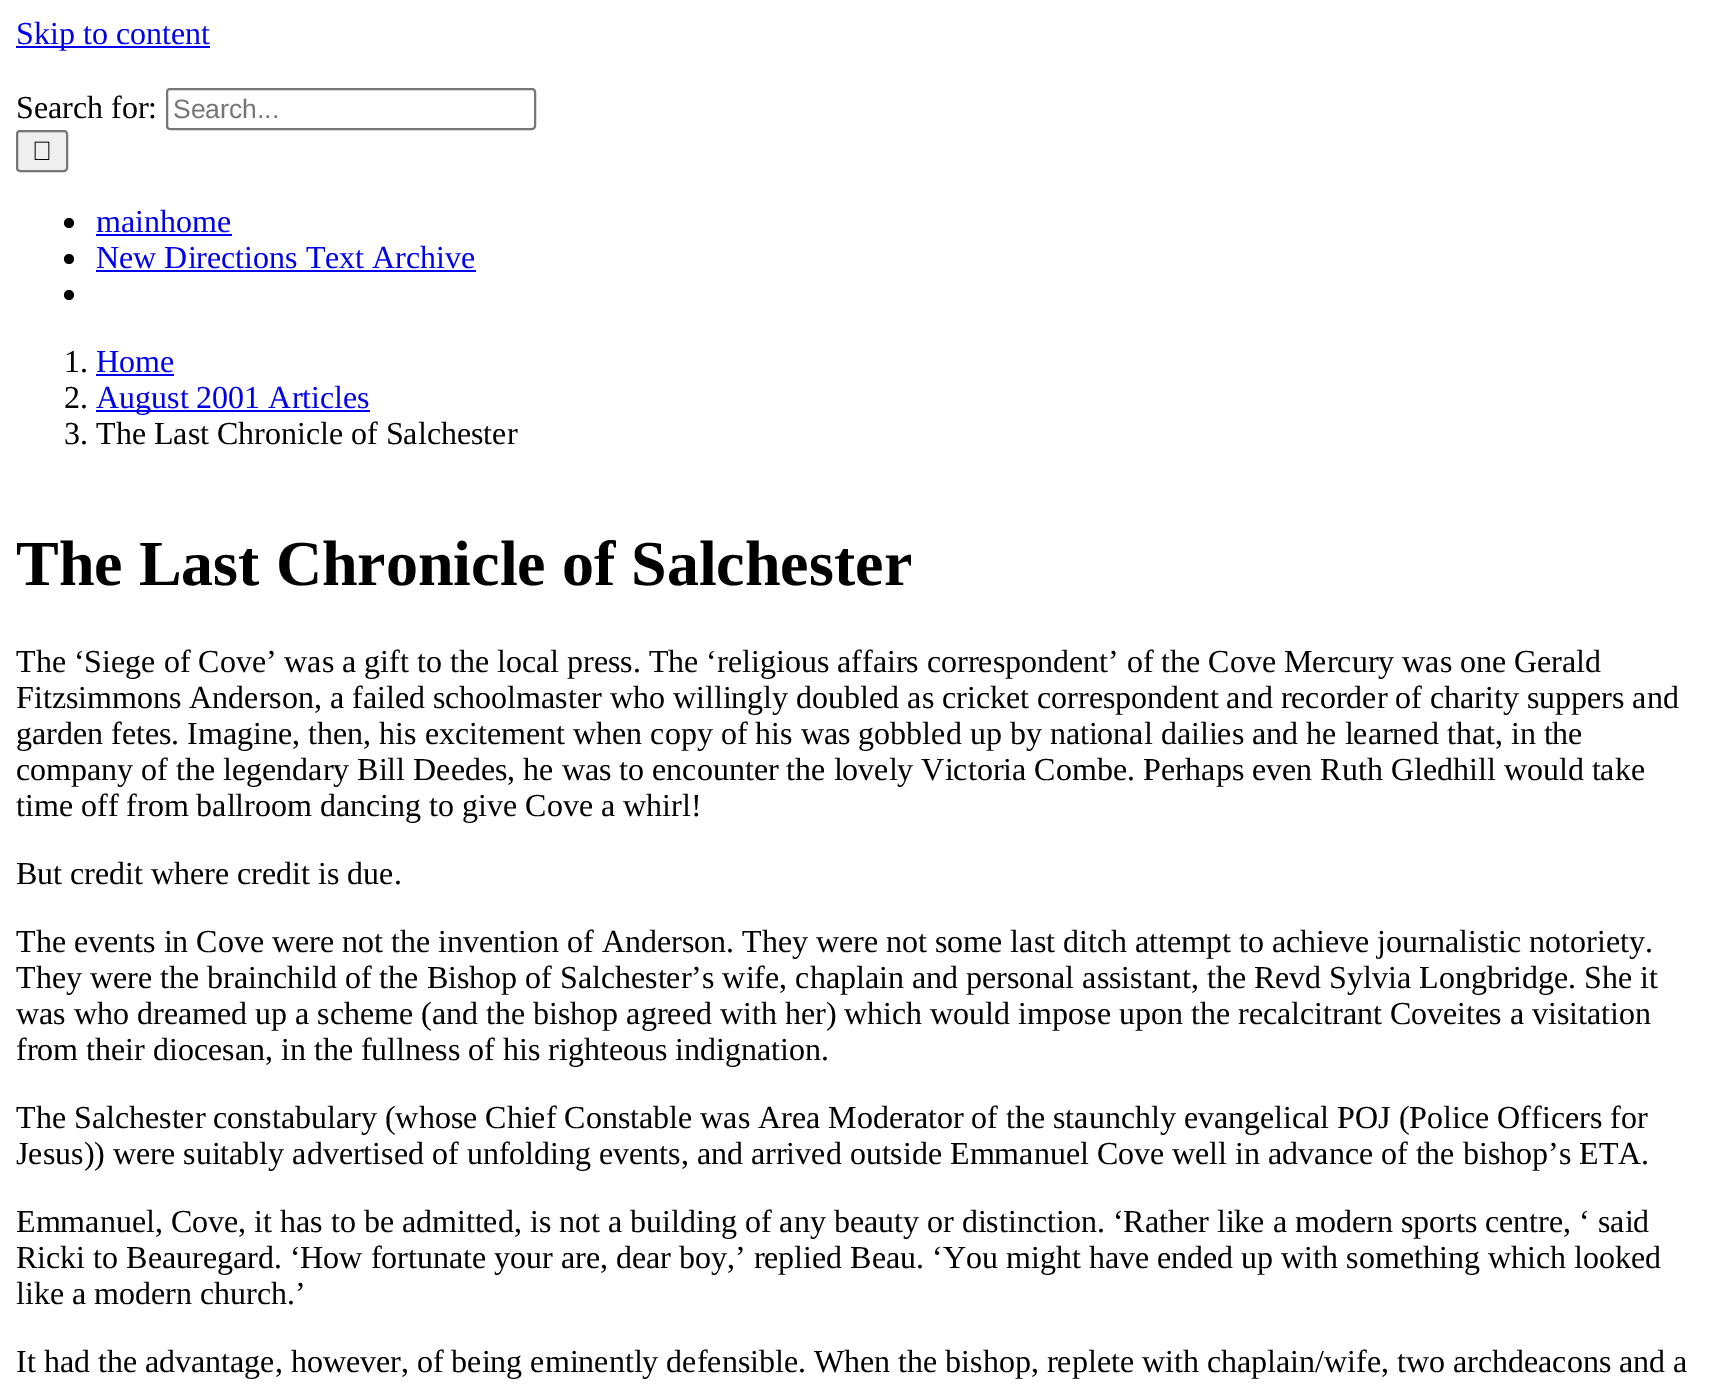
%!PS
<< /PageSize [1712 1395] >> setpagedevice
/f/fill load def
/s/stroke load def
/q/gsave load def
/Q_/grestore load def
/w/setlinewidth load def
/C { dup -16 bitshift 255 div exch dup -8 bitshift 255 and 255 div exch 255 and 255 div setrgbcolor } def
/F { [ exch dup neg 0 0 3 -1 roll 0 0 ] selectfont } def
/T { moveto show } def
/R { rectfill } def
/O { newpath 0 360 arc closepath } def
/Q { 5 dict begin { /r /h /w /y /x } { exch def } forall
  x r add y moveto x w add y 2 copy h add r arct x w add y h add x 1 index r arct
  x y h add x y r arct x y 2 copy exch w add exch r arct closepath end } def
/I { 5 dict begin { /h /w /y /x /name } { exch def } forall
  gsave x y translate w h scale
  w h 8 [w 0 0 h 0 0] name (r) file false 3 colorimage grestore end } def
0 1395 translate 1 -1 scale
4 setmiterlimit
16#FFFFFF C
0 0 1712 1395 R
16#0000EE C
16 46 194 2 R
/LiberationSerif-Regular 32 F
(Skip to content) 16 44 T
16#000000 C
(Search for:) 16 118 T
16#767676 C
2 w
167 89 368 40 3 Q s
/LiberationSans-Regular 26.5 F
16#757575 C
(Search...) 173 118 T
16#EFEFEF C
17 131 50 40 3 Q q f Q_
16#767676 C
s
(1.rgb) 34 141 16 19 I
16#000000 C
69 223 5 O f
/LiberationSerif-Regular 32 F
16#0000EE C
(mainhome) 96 232 T
96 234 136 2 R
16#000000 C
69 259 5 O f
16#0000EE C
(New Directions Text Archive) 96 268 T
96 270 380 2 R
16#000000 C
69 295 5 O f
(1.) 64 372 T
16#0000EE C
(Home) 96 372 T
96 374 78 2 R
16#000000 C
(2.) 64 408 T
16#0000EE C
96 410 274 2 R
(August 2001 Articles) 96 408 T
16#000000 C
(3. The Last Chronicle of Salchester) 64 444 T
/LiberationSerif-Bold 64 F
(The Last Chronicle of Salchester) 16 585 T
/LiberationSerif-Regular 32 F
(The ‘Siege of Cove’ was a gift to the local press. The ‘religious affairs correspondent’ of the Cove Mercury was one Gerald) 16 672 T
(Fitzsimmons Anderson, a failed schoolmaster who willingly doubled as cricket correspondent and recorder of charity suppers and) 16 708 T
(garden fetes. Imagine, then, his excitement when copy of his was gobbled up by national dailies and he learned that, in the) 16 744 T
(company of the legendary Bill Deedes, he was to encounter the lovely Victoria Combe. Perhaps even Ruth Gledhill would take) 16 780 T
(time off from ballroom dancing to give Cove a whirl!) 16 816 T
(But credit where credit is due.) 16 884 T
(The events in Cove were not the invention of Anderson. They were not some last ditch attempt to achieve journalistic notoriety.) 16 952 T
(They were the brainchild of the Bishop of Salchester’s wife, chaplain and personal assistant, the Revd Sylvia Longbridge. She it) 16 988 T
(was who dreamed up a scheme \(and the bishop agreed with her\) which would impose upon the recalcitrant Coveites a visitation) 16 1024 T
(from their diocesan, in the fullness of his righteous indignation.) 16 1060 T
(The Salchester constabulary \(whose Chief Constable was Area Moderator of the staunchly evangelical POJ \(Police Officers for) 16 1128 T
(Jesus\)\) were suitably advertised of unfolding events, and arrived outside Emmanuel Cove well in advance of the bishop’s ETA.) 16 1164 T
(Emmanuel, Cove, it has to be admitted, is not a building of any beauty or distinction. ‘Rather like a modern sports centre, ‘ said) 16 1232 T
(Ricki to Beauregard. ‘How fortunate your are, dear boy,’ replied Beau. ‘You might have ended up with something which looked) 16 1268 T
(like a modern church.’) 16 1304 T
(It had the advantage, however, of being eminently defensible. When the bishop, replete with chaplain/wife, two archdeacons and a) 16 1372 T
showpage
